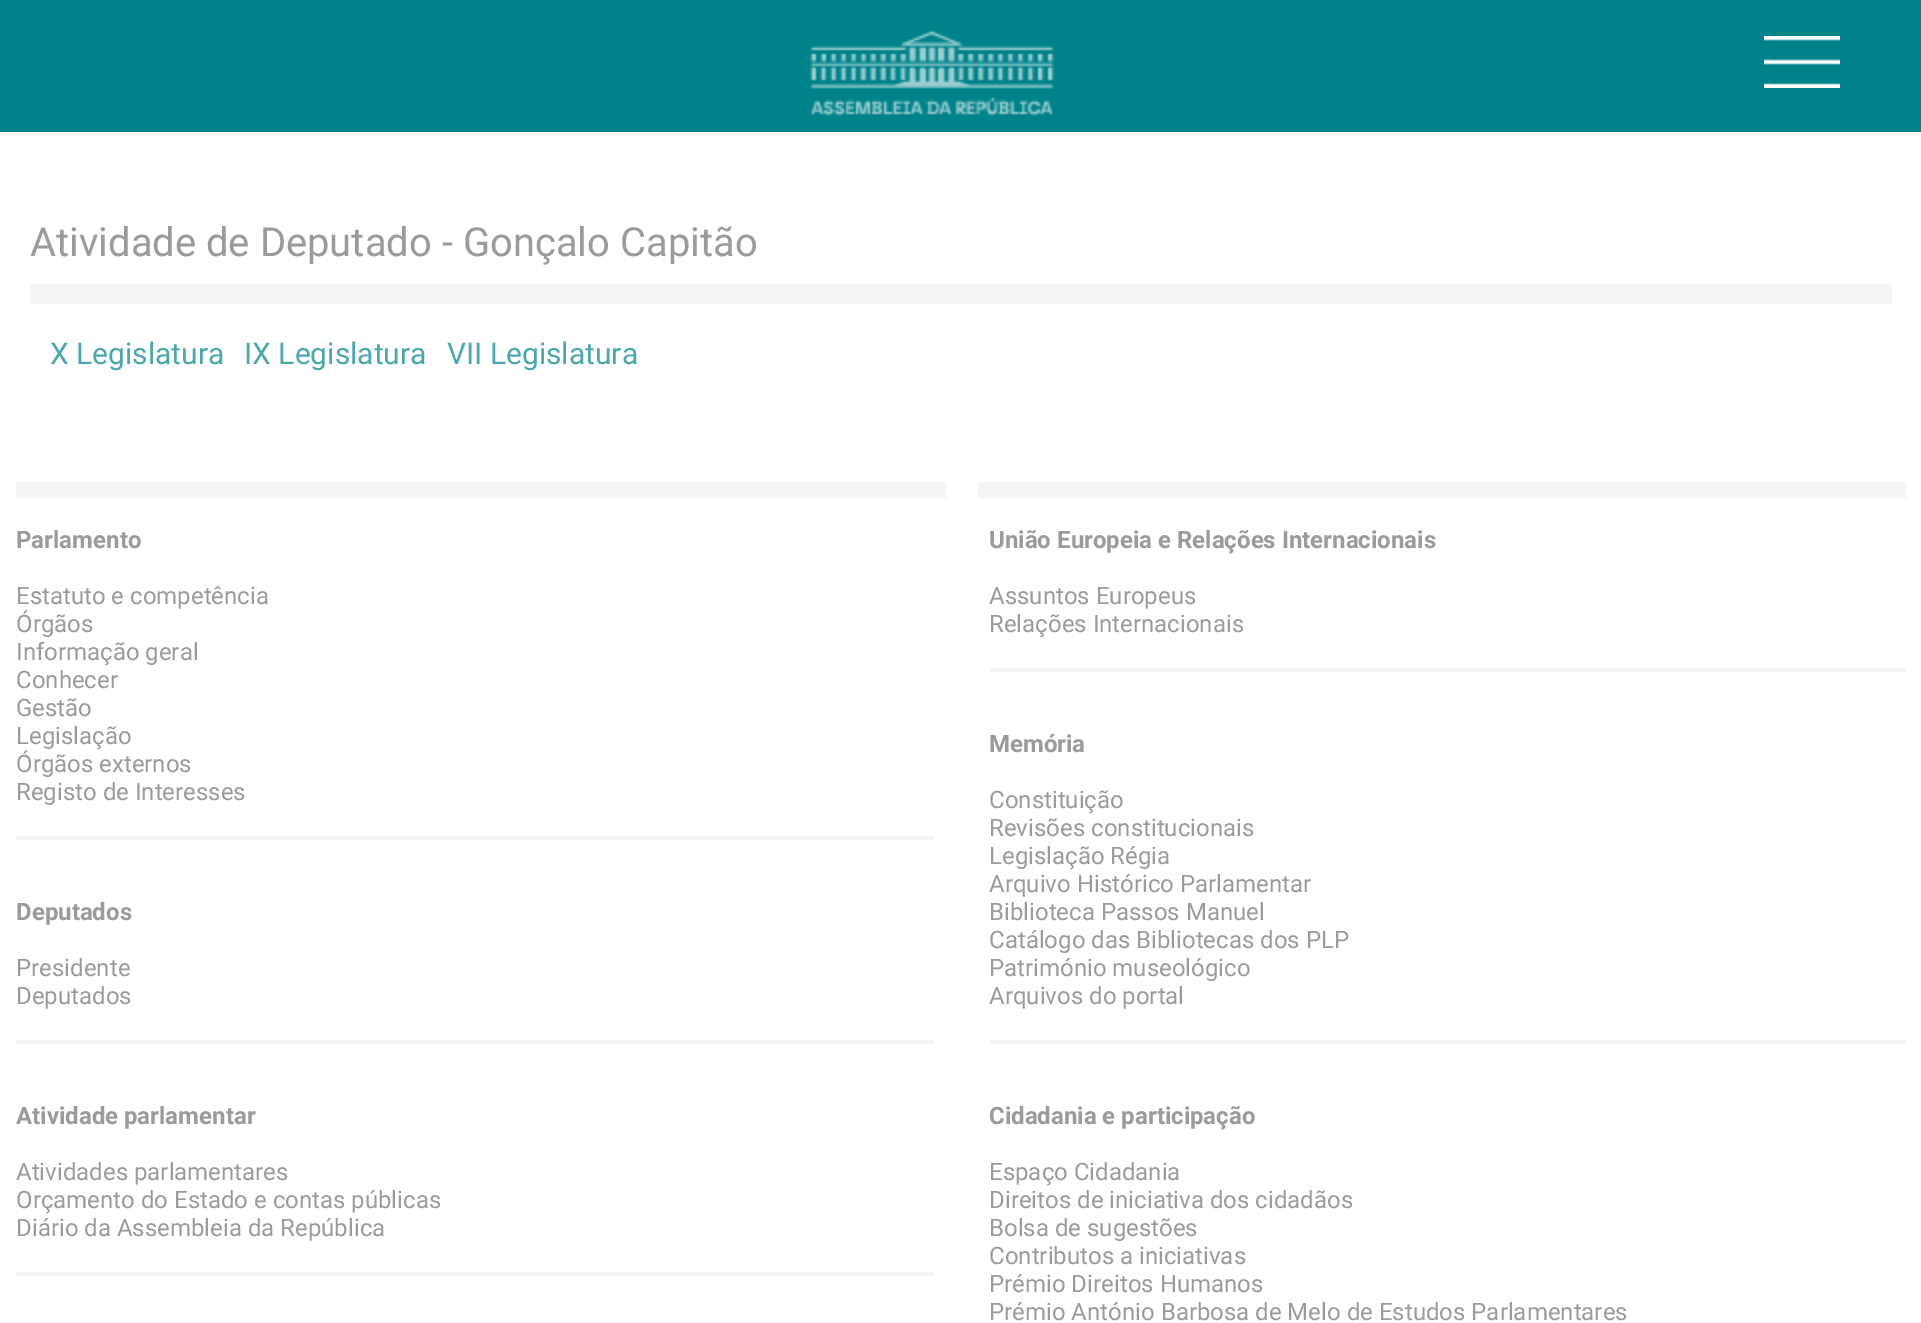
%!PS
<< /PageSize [1921 1323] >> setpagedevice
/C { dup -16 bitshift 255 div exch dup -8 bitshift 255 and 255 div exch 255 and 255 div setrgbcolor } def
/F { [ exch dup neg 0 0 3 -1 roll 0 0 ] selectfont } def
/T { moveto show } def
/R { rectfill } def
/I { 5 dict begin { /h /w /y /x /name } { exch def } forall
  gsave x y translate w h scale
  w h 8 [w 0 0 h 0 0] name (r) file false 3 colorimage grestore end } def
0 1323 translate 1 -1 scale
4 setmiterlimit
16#FFFFFF C
0 0 1921 1323 R
16#00828A C
0 0 1921 132 R
(1.rgb) 809 30 246 86 I
(2.rgb) 1764 36 76 52 I
/Roboto-Regular 40 F
16#9B9B9B C
(Atividade de Deputado - Gonçalo Capitão) 30 256 T
16#F5F5F5 C
30 284 1862 20 R
/Roboto-Regular 30 F
16#4DA8AD C
(X Legislatura) 50 364 T
(IX Legislatura) 244 364 T
(VII Legislatura) 447 364 T
16#F5F5F5 C
16 482 930 16 R
978 482 928 16 R
/Roboto-Bold 24 F
16#9B9B9B C
(Parlamento) 16 548 T
/Roboto-Regular 24 F
(Estatuto e competência) 16 604 T
(Órgãos) 16 632 T
(Informação geral) 16 660 T
(Conhecer) 16 688 T
(Gestão) 16 716 T
(Legislação) 16 744 T
(Órgãos externos) 16 772 T
(Registo de Interesses) 16 800 T
16#F5F5F5 C
16 836 918 4 R
/Roboto-Bold 24 F
16#9B9B9B C
(União Europeia e Relações Internacionais) 989 548 T
/Roboto-Regular 24 F
(Assuntos Europeus) 989 604 T
(Relações Internacionais) 989 632 T
16#F5F5F5 C
990 668 916 4 R
/Roboto-Bold 24 F
16#9B9B9B C
(Deputados) 16 920 T
/Roboto-Regular 24 F
(Presidente) 16 976 T
(Deputados) 16 1004 T
16#F5F5F5 C
16 1040 918 4 R
/Roboto-Bold 24 F
16#9B9B9B C
(Memória) 989 752 T
/Roboto-Regular 24 F
(Constituição) 989 808 T
(Revisões constitucionais) 989 836 T
(Legislação Régia) 989 864 T
(Arquivo Histórico Parlamentar) 989 892 T
(Biblioteca Passos Manuel) 989 920 T
(Catálogo das Bibliotecas dos PLP) 989 948 T
(Património museológico) 989 976 T
(Arquivos do portal) 989 1004 T
16#F5F5F5 C
990 1040 916 4 R
/Roboto-Bold 24 F
16#9B9B9B C
(Atividade parlamentar) 16 1124 T
/Roboto-Regular 24 F
(Atividades parlamentares) 16 1180 T
(Orçamento do Estado e contas públicas) 16 1208 T
(Diário da Assembleia da República) 16 1236 T
16#F5F5F5 C
16 1272 918 4 R
/Roboto-Bold 24 F
16#9B9B9B C
(Cidadania e participação) 989 1124 T
/Roboto-Regular 24 F
(Espaço Cidadania) 989 1180 T
(Direitos de iniciativa dos cidadãos) 989 1208 T
(Bolsa de sugestões) 989 1236 T
(Contributos a iniciativas) 989 1264 T
(Prémio Direitos Humanos) 989 1292 T
(Prémio António Barbosa de Melo de Estudos Parlamentares) 989 1320 T
showpage
